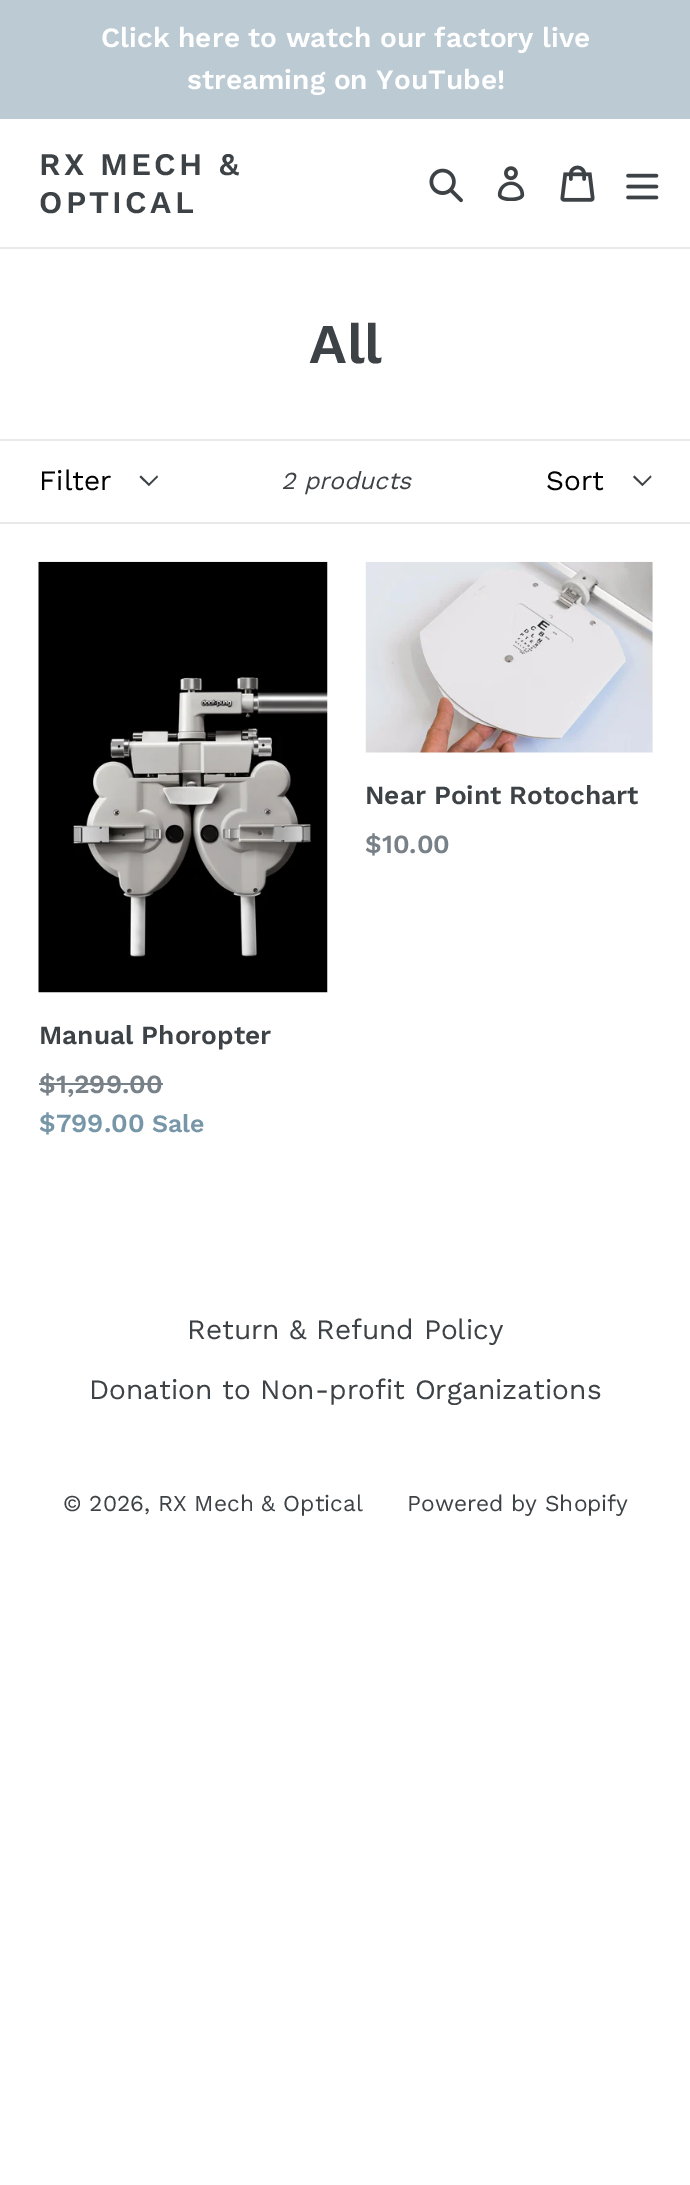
%!PS
<< /PageSize [690 2185] >> setpagedevice
/m/moveto load def
/l/rlineto load def
/z/closepath load def
/f/fill load def
/C { dup -16 bitshift 255 div exch dup -8 bitshift 255 and 255 div exch 255 and 255 div setrgbcolor } def
/F { [ exch dup neg 0 0 3 -1 roll 0 0 ] selectfont } def
/T { moveto show } def
/R { rectfill } def
/I { 5 dict begin { /h /w /y /x /name } { exch def } forall
  gsave x y translate w h scale
  w h 8 [w 0 0 h 0 0] name (r) file false 3 colorimage grestore end } def
0 2185 translate 1 -1 scale
4 setmiterlimit
16#FFFFFF C
0 0 690 2185 R
16#BBCAD3 C
0 0 690 119 R
/WorkSans-SemiBold 28 F
16#FFFFFF C
(Click here to watch our factory live) 101 47 T
(streaming on YouTube!) 187 89 T
16#E8E9EB C
0 247 690 2 R
/WorkSans-SemiBold 31.5 F
16#3D4246 C
39 175 m 3.25 0 (RX MECH &) ashow
39 213 m 3.25 0 (OPTICAL) ashow
(1.rgb) 429 168 34 35 I
(2.rgb) 497 166 28 35 I
(3.rgb) 560 165 35 37 I
(4.rgb) 626 173 33 27 I
/WorkSans-SemiBold 56 F
(All) 309 363 T
16#E8E9EB C
0 439 690 2 R
0 522 690 2 R
16#3D4246 C
149 486 m -9.5 -9 l 1.5 -1.5 l 8 8 l 8 -8 l 1 1.5 l z f
/WorkSans-Regular 28 F
16#000000 C
(Filter) 39 490 T
/WorkSans-Italic 24.5 F
16#3D4246 C
(2 products) 281 489 T
642.5 486 m -9.5 -9 l 1.5 -1.5 l 8 8 l 8 -8 l 1 1.5 l z f
/WorkSans-Regular 28 F
16#000000 C
(Sort) 546 490 T
(5.rgb) 365 561 288 192 I
/WorkSans-SemiBold 26.25 F
16#3D4246 C
(Near Point Rotochart) 365 804 T
16#788188 C
($10.00) 365 853 T
(6.rgb) 38 561 290 432 I
16#3D4246 C
(Manual Phoropter) 39 1044 T
16#788188 C
($1,299.00) 39 1093 T
39 1083 124 2 R
16#7796A8 C
($799.00) 39 1132 T
/WorkSans-SemiBold 25 F
(Sale) 152 1132 T
/WorkSans-Regular 28 F
16#3D4246 C
(Return & Refund Policy) 187 1339 T
(Donation to Non-profit Organizations) 89 1399 T
/WorkSans-Regular 22.75 F
(© 2026, RX Mech & Optical) 63 1511 T
(Powered by Shopify) 407 1511 T
showpage
